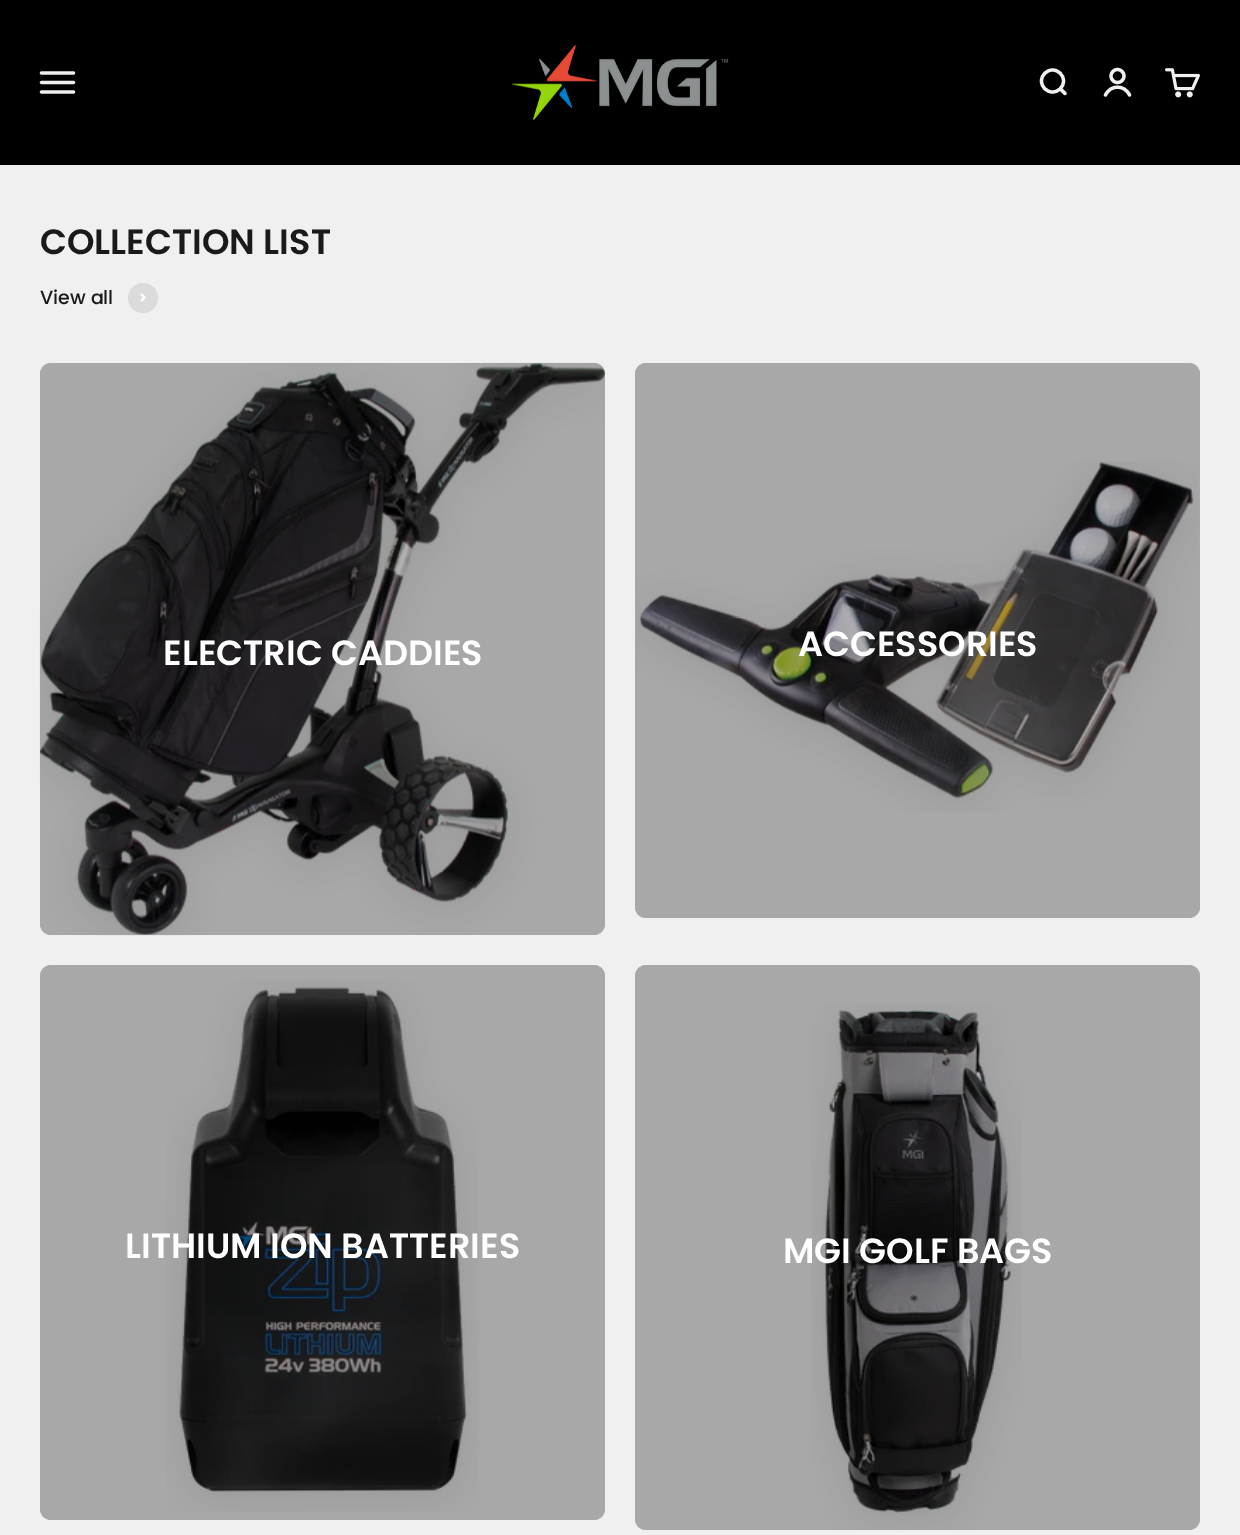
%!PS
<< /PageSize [1240 1535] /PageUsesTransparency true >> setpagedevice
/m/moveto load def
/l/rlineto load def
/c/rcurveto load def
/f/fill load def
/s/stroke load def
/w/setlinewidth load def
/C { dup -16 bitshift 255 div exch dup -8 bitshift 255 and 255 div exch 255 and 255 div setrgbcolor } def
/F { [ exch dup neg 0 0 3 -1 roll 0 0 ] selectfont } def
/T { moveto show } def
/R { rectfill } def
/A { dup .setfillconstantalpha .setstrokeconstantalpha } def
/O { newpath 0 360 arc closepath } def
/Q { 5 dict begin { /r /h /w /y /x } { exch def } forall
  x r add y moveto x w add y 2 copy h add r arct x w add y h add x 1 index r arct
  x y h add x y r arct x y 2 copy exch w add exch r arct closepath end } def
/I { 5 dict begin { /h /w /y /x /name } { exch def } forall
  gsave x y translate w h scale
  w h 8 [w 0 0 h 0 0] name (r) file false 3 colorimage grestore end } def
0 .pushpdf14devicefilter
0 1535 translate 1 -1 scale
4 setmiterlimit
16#F0F0F0 C
0 0 1240 1535 R
16#000000 C
0 0 1240 165 R
16#F0F0F0 C
3.2 w
1 setlinecap
41.5 73 m 32 0 l 41.5 82.5 m 32 0 l 41.5 92 m 32 0 l s
(1.rgb) 512 45 217 75 I
0 setlinecap
1052.5 81 11 O s
1 setlinecap
1 setlinejoin
1060.5 89 m 4.5 4.5 l s
0 setlinecap
0 setlinejoin
1117.5 76 6.5 O s
1 setlinecap
1105.5 95 m 5 -10.5 19 -10.5 24 0 c s
(2.rgb) 1165 68 35 30 I
/Poppins-SemiBold 35 F
16#1A1A1A C
(COLLECTION LIST) 40 254 T
/Poppins-Medium 19 F
(View all) 40 304 T
16#DBDBDB C
143 298 15 O f
16#FFFFFF C
1.9 w
0 setlinecap
141 301 m 3.5 -3.5 l -3.5 -3.5 l s
(3.rgb) 39 362 566 574 I
0.3 A
16#000000 C
40 363 565 572 11 Q f
/Poppins-SemiBold 35 F
1 A
16#FFFFFF C
(ELECTRIC CADDIES) 163 665 T
(4.rgb) 636 461 563 351 I
0.3 A
16#000000 C
635 363 565 555 11 Q f
1 A
16#FFFFFF C
(ACCESSORIES) 798 656 T
(5.rgb) 166 980 313 532 I
0.3 A
16#000000 C
40 965 565 555 11 Q f
1 A
16#FFFFFF C
(LITHIUM ION BATTERIES) 125 1258 T
(6.rgb) 811 1003 211 528 I
0.3 A
16#000000 C
635 965 565 565 11 Q f
1 A
16#FFFFFF C
(MGI GOLF BAGS) 783 1263 T
.poppdf14devicefilter showpage
